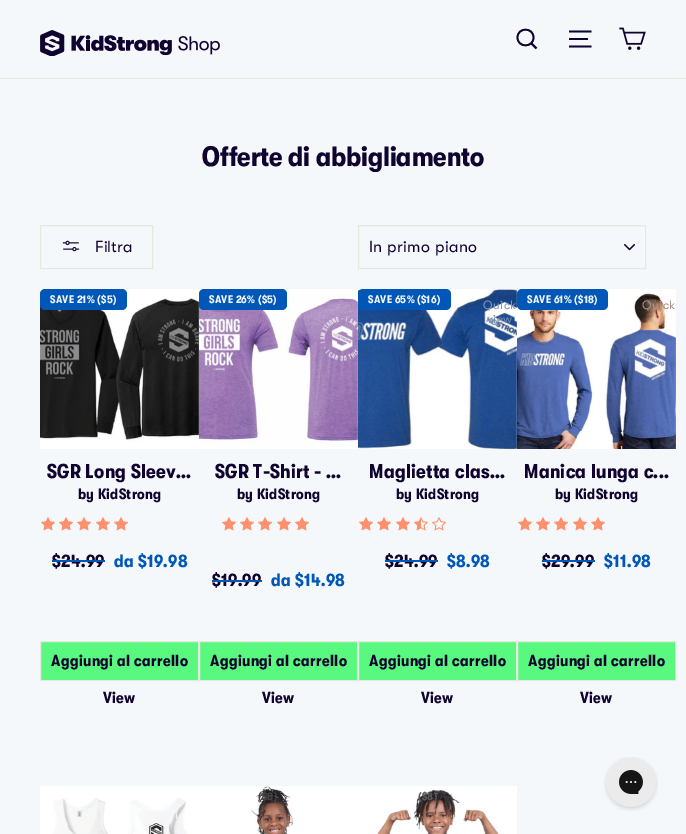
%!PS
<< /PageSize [686 834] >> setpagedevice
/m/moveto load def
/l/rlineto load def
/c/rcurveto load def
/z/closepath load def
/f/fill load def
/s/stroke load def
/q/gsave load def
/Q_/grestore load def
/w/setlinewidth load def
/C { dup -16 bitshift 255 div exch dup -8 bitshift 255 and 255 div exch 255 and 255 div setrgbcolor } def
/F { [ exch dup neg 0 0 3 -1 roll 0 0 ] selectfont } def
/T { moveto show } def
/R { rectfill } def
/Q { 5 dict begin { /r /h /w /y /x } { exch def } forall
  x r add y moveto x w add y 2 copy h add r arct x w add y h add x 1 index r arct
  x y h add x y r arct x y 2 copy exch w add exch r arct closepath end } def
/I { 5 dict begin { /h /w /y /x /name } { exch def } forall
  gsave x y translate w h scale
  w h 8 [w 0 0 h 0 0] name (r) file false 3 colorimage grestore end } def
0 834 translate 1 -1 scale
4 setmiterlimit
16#F5F8FB C
0 0 686 834 R
16#E8E8E1 C
0 78 686 1 R
(1.rgb) 40 30 180 26 I
16#11032F C
1.8 w
533.5 37.5 m 0 10.5 -16 10.5 -16 0 c 0 -10.5 16 -10.5 16 0 c z 536.5 48.5 m -5 -5 l s
569 31.5 m 22.5 0 l 569 39 m 19 0 l 569 46.5 m 22.5 0 l s
(2.rgb) 619 27 27 23 I
/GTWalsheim-Bold 28 F
(Offerte di abbigliamento) 202 166 T
16#E8E8E1 C
1 w
40.5 225.5 112 43 rectstroke
(3.rgb) 62 240 18 12 I
/GTWalsheim-Regular 16 F
16#11032F C
(Filtra) 95 252 T
(4.rgb) 624 244 11 7 I
16#E8E8E1 C
358.5 225.5 287 43 rectstroke
16#11032F C
369 252 m .4 0 (In primo piano) ashow
(5.rgb) 40 289 159 160 I
16#0057B8 C
40 289 87 21 5 Q f
/GTWalsheim-Bold 11 F
16#F5F8FB C
50 303 m .25 0 (SAVE 21% \($5\)) ashow
/GTWalsheim-Bold 20 F
16#11032F C
47 478 m .3 0 (SGR Long Sleev...) ashow
/GTWalsheim-Bold 15 F
78 499 m .3 0 (by KidStrong) ashow
(6.rgb) 41 517 14 14 I
(6.rgb) 59 517 14 14 I
(6.rgb) 77 517 14 14 I
(6.rgb) 96 517 14 14 I
(6.rgb) 114 517 14 14 I
/GTWalsheim-Bold 18 F
52 567 m .3 0 ($24.99) ashow
16#0057B8 C
52 560 53 2 R
114 567 m .3 0 (da $19.98) ashow
16#59F97F C
40.5 641.5 m 158 0 l 0 39 l -158 0 l z q f Q_
16#E8E8E1 C
s
/GTWalsheim-Bold 16 F
16#11032F C
51 666 m .4 0 (Aggiungi al carrello) ashow
103 703 m .3 0 (View) ashow
(7.rgb) 199 289 159 160 I
16#0057B8 C
199 289 88 21 5 Q f
/GTWalsheim-Bold 11 F
16#F5F8FB C
209 303 m .25 0 (SAVE 26% \($5\)) ashow
/GTWalsheim-Bold 20 F
16#11032F C
215 478 m .3 0 (SGR T-Shirt - ...) ashow
/GTWalsheim-Bold 15 F
237 499 m .3 0 (by KidStrong) ashow
(6.rgb) 222 517 14 14 I
(6.rgb) 240 517 14 14 I
(6.rgb) 258 517 14 14 I
(6.rgb) 277 517 14 14 I
(6.rgb) 295 517 14 14 I
/GTWalsheim-Bold 18 F
212 586 m .3 0 ($19.99) ashow
16#0057B8 C
212 580 50 2 R
271 586 m .3 0 (da $14.98) ashow
16#59F97F C
199.5 641.5 m 158 0 l 0 39 l -158 0 l z q f Q_
16#E8E8E1 C
s
/GTWalsheim-Bold 16 F
16#11032F C
210 666 m .4 0 (Aggiungi al carrello) ashow
262 703 m .3 0 (View) ashow
(8.rgb) 358 289 159 160 I
16#0057B8 C
358 289 93 21 5 Q f
/GTWalsheim-Bold 11 F
16#F5F8FB C
368 303 m .25 0 (SAVE 65% \($16\)) ashow
/GTWalsheim-Regular 12 F
16#8098BB C
483 309 m .5 0 (Quick) ashow
16#7790B5 C
487 323 m .5 0 (view) ashow
/GTWalsheim-Bold 20 F
16#11032F C
369 478 m .3 0 (Maglietta clas...) ashow
/GTWalsheim-Bold 15 F
396 499 m .3 0 (by KidStrong) ashow
(6.rgb) 359 517 14 14 I
(6.rgb) 377 517 14 14 I
(6.rgb) 396 517 14 14 I
(9.rgb) 414 517 14 14 I
(10.rgb) 432 517 14 14 I
/GTWalsheim-Bold 18 F
385 567 m .3 0 ($24.99) ashow
16#0057B8 C
385 560 53 2 R
447 567 m .3 0 ($8.98) ashow
16#59F97F C
358.5 641.5 m 158 0 l 0 39 l -158 0 l z q f Q_
16#E8E8E1 C
s
/GTWalsheim-Bold 16 F
16#11032F C
369 666 m .4 0 (Aggiungi al carrello) ashow
421 703 m .3 0 (View) ashow
(11.rgb) 517 289 159 160 I
16#0057B8 C
517 289 91 21 5 Q f
/GTWalsheim-Bold 11 F
16#F5F8FB C
527 303 m .25 0 (SAVE 61% \($18\)) ashow
/GTWalsheim-Regular 12 F
16#A99487 C
642 309 m .5 0 (Quick) ashow
/GTWalsheim-Bold 20 F
16#11032F C
524 478 m .3 0 (Manica lunga c...) ashow
/GTWalsheim-Bold 15 F
555 499 m .3 0 (by KidStrong) ashow
(6.rgb) 518 517 14 14 I
(6.rgb) 536 517 14 14 I
(6.rgb) 554 517 14 14 I
(6.rgb) 573 517 14 14 I
(6.rgb) 591 517 14 14 I
/GTWalsheim-Bold 18 F
542 567 m .3 0 ($29.99) ashow
16#0057B8 C
542 560 53 2 R
604 567 m .3 0 ($11.98) ashow
16#59F97F C
517.5 641.5 m 158 0 l 0 39 l -158 0 l z q f Q_
16#E8E8E1 C
s
/GTWalsheim-Bold 16 F
16#11032F C
528 666 m .4 0 (Aggiungi al carrello) ashow
580 703 m .3 0 (View) ashow
(12.rgb) 199 786 159 48 I
/GTWalsheim-Bold 11 F
16#484547 C
258 800 m .25 0 (\($8\)) ashow
(13.rgb) 358 786 159 48 I
16#5E5A5C C
418 800 m .25 0 (\($8\)) ashow
(14.rgb) 40 786 159 48 I
/GTWalsheim-Regular 12 F
16#F3F4F4 C
175 819 m .5 0 (i) ashow
(15.rgb) 604 757 54 54 I
showpage
